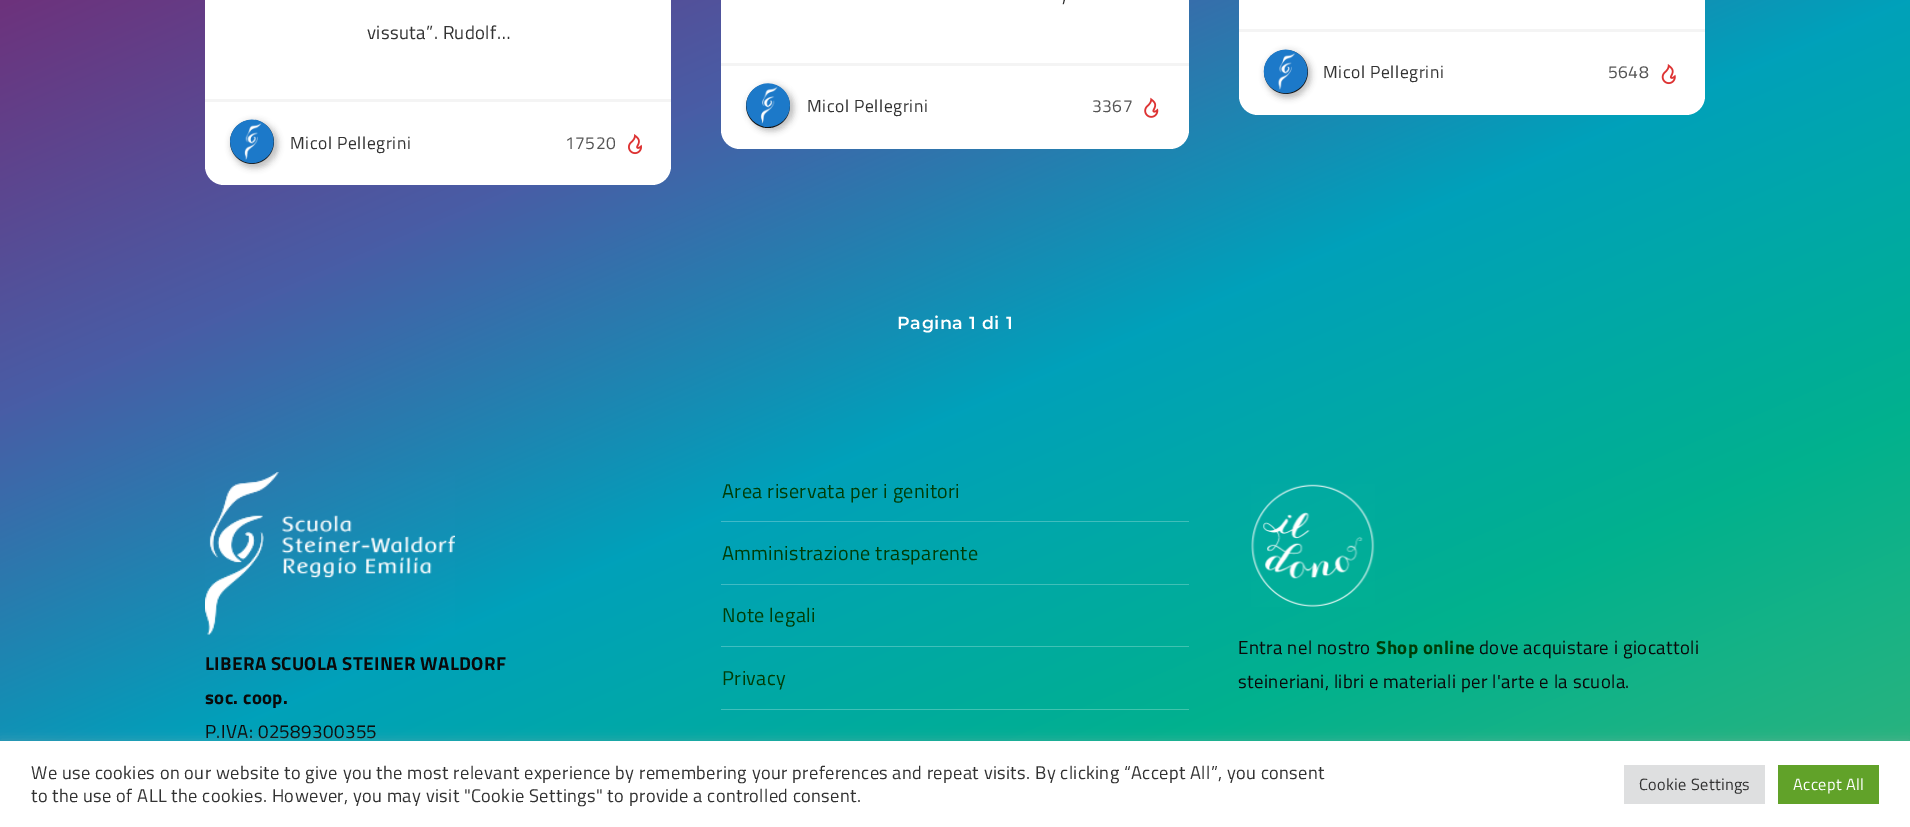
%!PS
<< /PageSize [1910 827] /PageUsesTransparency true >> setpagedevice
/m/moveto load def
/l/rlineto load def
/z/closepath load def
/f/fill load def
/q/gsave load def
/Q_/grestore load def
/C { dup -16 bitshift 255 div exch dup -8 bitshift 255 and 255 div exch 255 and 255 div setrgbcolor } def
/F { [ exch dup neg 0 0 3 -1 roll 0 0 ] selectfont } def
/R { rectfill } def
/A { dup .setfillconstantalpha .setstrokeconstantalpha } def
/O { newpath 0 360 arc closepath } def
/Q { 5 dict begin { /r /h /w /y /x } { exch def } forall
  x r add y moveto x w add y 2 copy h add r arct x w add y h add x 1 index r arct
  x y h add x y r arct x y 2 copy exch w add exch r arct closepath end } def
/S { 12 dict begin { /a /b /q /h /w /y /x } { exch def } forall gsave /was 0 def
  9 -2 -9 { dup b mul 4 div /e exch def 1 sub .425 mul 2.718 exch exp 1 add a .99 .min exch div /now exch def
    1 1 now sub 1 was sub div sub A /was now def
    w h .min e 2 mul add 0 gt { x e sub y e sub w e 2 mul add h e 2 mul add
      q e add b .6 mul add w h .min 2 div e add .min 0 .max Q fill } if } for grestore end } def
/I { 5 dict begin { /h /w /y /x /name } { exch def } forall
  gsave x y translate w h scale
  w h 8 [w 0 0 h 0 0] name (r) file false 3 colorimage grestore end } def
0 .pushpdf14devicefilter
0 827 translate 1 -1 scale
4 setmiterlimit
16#FFFFFF C
0 0 1910 827 R
q 0 0 m 1910 0 l 0 741 l -1910 0 l z clip newpath
<< /ShadingType 2 /ColorSpace /DeviceRGB /Coords [653 -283 1257 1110] /Extend [true true] /Function << /FunctionType 3 /Domain [0 1] /Functions [<< /FunctionType 2 /Domain [0 1] /C0 [.427 .196 .486] /C1 [.282 .365 .651] /N 1 >> << /FunctionType 2 /Domain [0 1] /C0 [.282 .365 .651] /C1 [0 .631 .729] /N 1 >> << /FunctionType 2 /Domain [0 1] /C0 [0 .631 .729] /C1 [.004 .694 .557] /N 1 >> << /FunctionType 2 /Domain [0 1] /C0 [.004 .694 .557] /C1 [.196 .702 .482] /N 1 >>] /Bounds [.25 .5 .75] /Encode [0 1 0 1 0 1 0 1] >> >> shfill Q_
q 721 709 m 468 0 l 0 1 l -468 0 l z clip newpath
<< /ShadingType 2 /ColorSpace /DeviceRGB /Coords [653 -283 1257 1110] /Extend [true true] /Function << /FunctionType 3 /Domain [0 1] /Functions [<< /FunctionType 2 /Domain [0 1] /C0 [.573 .396 .616] /C1 [.463 .525 .737] /N 1 >> << /FunctionType 2 /Domain [0 1] /C0 [.463 .525 .737] /C1 [.251 .725 .796] /N 1 >> << /FunctionType 2 /Domain [0 1] /C0 [.251 .725 .796] /C1 [.255 .773 .667] /N 1 >> << /FunctionType 2 /Domain [0 1] /C0 [.255 .773 .667] /C1 [.396 .776 .612] /N 1 >>] /Bounds [.25 .5 .75] /Encode [0 1 0 1 0 1 0 1] >> >> shfill Q_
q 721 646 m 468 0 l 0 1 l -468 0 l z clip newpath
<< /ShadingType 2 /ColorSpace /DeviceRGB /Coords [653 -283 1257 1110] /Extend [true true] /Function << /FunctionType 3 /Domain [0 1] /Functions [<< /FunctionType 2 /Domain [0 1] /C0 [.573 .396 .616] /C1 [.463 .525 .737] /N 1 >> << /FunctionType 2 /Domain [0 1] /C0 [.463 .525 .737] /C1 [.251 .725 .796] /N 1 >> << /FunctionType 2 /Domain [0 1] /C0 [.251 .725 .796] /C1 [.255 .773 .667] /N 1 >> << /FunctionType 2 /Domain [0 1] /C0 [.255 .773 .667] /C1 [.396 .776 .612] /N 1 >>] /Bounds [.25 .5 .75] /Encode [0 1 0 1 0 1 0 1] >> >> shfill Q_
q 721 584 m 468 0 l 0 1 l -468 0 l z clip newpath
<< /ShadingType 2 /ColorSpace /DeviceRGB /Coords [653 -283 1257 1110] /Extend [true true] /Function << /FunctionType 3 /Domain [0 1] /Functions [<< /FunctionType 2 /Domain [0 1] /C0 [.573 .396 .616] /C1 [.463 .525 .737] /N 1 >> << /FunctionType 2 /Domain [0 1] /C0 [.463 .525 .737] /C1 [.251 .725 .796] /N 1 >> << /FunctionType 2 /Domain [0 1] /C0 [.251 .725 .796] /C1 [.255 .773 .667] /N 1 >> << /FunctionType 2 /Domain [0 1] /C0 [.255 .773 .667] /C1 [.396 .776 .612] /N 1 >>] /Bounds [.25 .5 .75] /Encode [0 1 0 1 0 1 0 1] >> >> shfill Q_
q 721 521 m 468 0 l 0 1 l -468 0 l z clip newpath
<< /ShadingType 2 /ColorSpace /DeviceRGB /Coords [653 -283 1257 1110] /Extend [true true] /Function << /FunctionType 3 /Domain [0 1] /Functions [<< /FunctionType 2 /Domain [0 1] /C0 [.573 .396 .616] /C1 [.463 .525 .737] /N 1 >> << /FunctionType 2 /Domain [0 1] /C0 [.463 .525 .737] /C1 [.251 .725 .796] /N 1 >> << /FunctionType 2 /Domain [0 1] /C0 [.251 .725 .796] /C1 [.255 .773 .667] /N 1 >> << /FunctionType 2 /Domain [0 1] /C0 [.255 .773 .667] /C1 [.396 .776 .612] /N 1 >>] /Bounds [.25 .5 .75] /Encode [0 1 0 1 0 1 0 1] >> >> shfill Q_
205 -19 466 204 19 Q f
/TitilliumWeb-Regular 18.75 F
16#333333 C
367 39 m .38 0 (vissuta”. Rudolf…) ashow
16#F4F4F4 C
205 99 466 3 R
16#000000 C
231 121 47 47 23.5 3 .25 S
16#111111 C
252 142 22 O f
(1.rgb) 230 119 44 45 I
/TitilliumWeb-Regular 17.5 F
16#333333 C
290 149 m .6 0 (Micol Pellegrini) ashow
16#555555 C
565 149 m .38 0 (17520) ashow
(2.rgb) 628 134 14 21 I
16#FFFFFF C
721 -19 468 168 19 Q f
/TitilliumWeb-Regular 18.75 F
16#333333 C
1062 2 m .38 0 (,) ashow
16#F4F4F4 C
721 63 468 3 R
16#000000 C
748 85 46 46 23 3 .25 S
16#111111 C
768 106 22 O f
(3.rgb) 746 83 45 44 I
/TitilliumWeb-Regular 17.5 F
16#333333 C
807 112 m .6 0 (Micol Pellegrini) ashow
16#555555 C
1092 112 m .38 0 (3367) ashow
(4.rgb) 1144 97 15 21 I
16#FFFFFF C
1239 -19 466 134 19 Q f
16#F4F4F4 C
1239 29 466 3 R
16#000000 C
1265 51 46 47 23 3 .25 S
16#111111 C
1286 72 22 O f
(5.rgb) 1263 49 45 45 I
16#333333 C
1323 78 m .6 0 (Micol Pellegrini) ashow
16#555555 C
1608 78 m .38 0 (5648) ashow
(6.rgb) 1661 64 15 21 I
/Montserrat-SemiBold 17.5 F
16#FFFFFF C
897 329 m .6 0 (Pagina 1 di 1) ashow
(7.rgb) 205 472 250 163 I
/TitilliumWeb-Bold 18.75 F
16#0A0A0A C
205 670 m .38 0 (LIBERA SCUOLA STEINER WALDORF) ashow
205 704 m .38 0 (soc. coop.) ashow
/TitilliumWeb-Regular 18.75 F
205 738 m .38 0 (P.IVA: 02589300355) ashow
/TitilliumWeb-Regular 20 F
16#003D07 C
722 498 m .38 0 (Area riservata per i genitori) ashow
722 560 m .38 0 (Amministrazione trasparente) ashow
722 622 m .38 0 (Note legali) ashow
722 685 m .38 0 (Privacy) ashow
(8.rgb) 1251 484 124 123 I
/TitilliumWeb-Regular 18.75 F
16#0A0A0A C
1238 654 m .38 0 (Entra nel nostro) ashow
/TitilliumWeb-Bold 18.75 F
16#003D07 C
1376 654 m .38 0 (Shop online) ashow
/TitilliumWeb-Regular 18.75 F
16#0A0A0A C
1479 654 m .38 0 (dove acquistare i giocattoli) ashow
1238 688 m .38 0 (steineriani, libri e materiali per l'arte e la scuola.) ashow
16#ACABAB C
0 740 1910 86 0 6 .3 S
16#FFFFFF C
0 741 1910 86 R
/TitilliumWeb-Regular 18.33 F
16#333333 C
31 779 m .38 0 (We use cookies on our website to give you the most relevant experience by remembering your preferences and repeat visits. By clicking “Accept All”, you consent) ashow
31 802 m .38 0 (to the use of ALL the cookies. However, you may visit "Cookie Settings" to provide a controlled consent.) ashow
16#DEDFE0 C
1624 765 141 39 R
/TitilliumWeb-Regular 16.25 F
16#333333 C
1639 790 m .38 0 (Cookie Settings) ashow
16#61A229 C
1778 765 101 39 R
16#FFFFFF C
1793 790 m .38 0 (Accept All) ashow
.poppdf14devicefilter showpage
